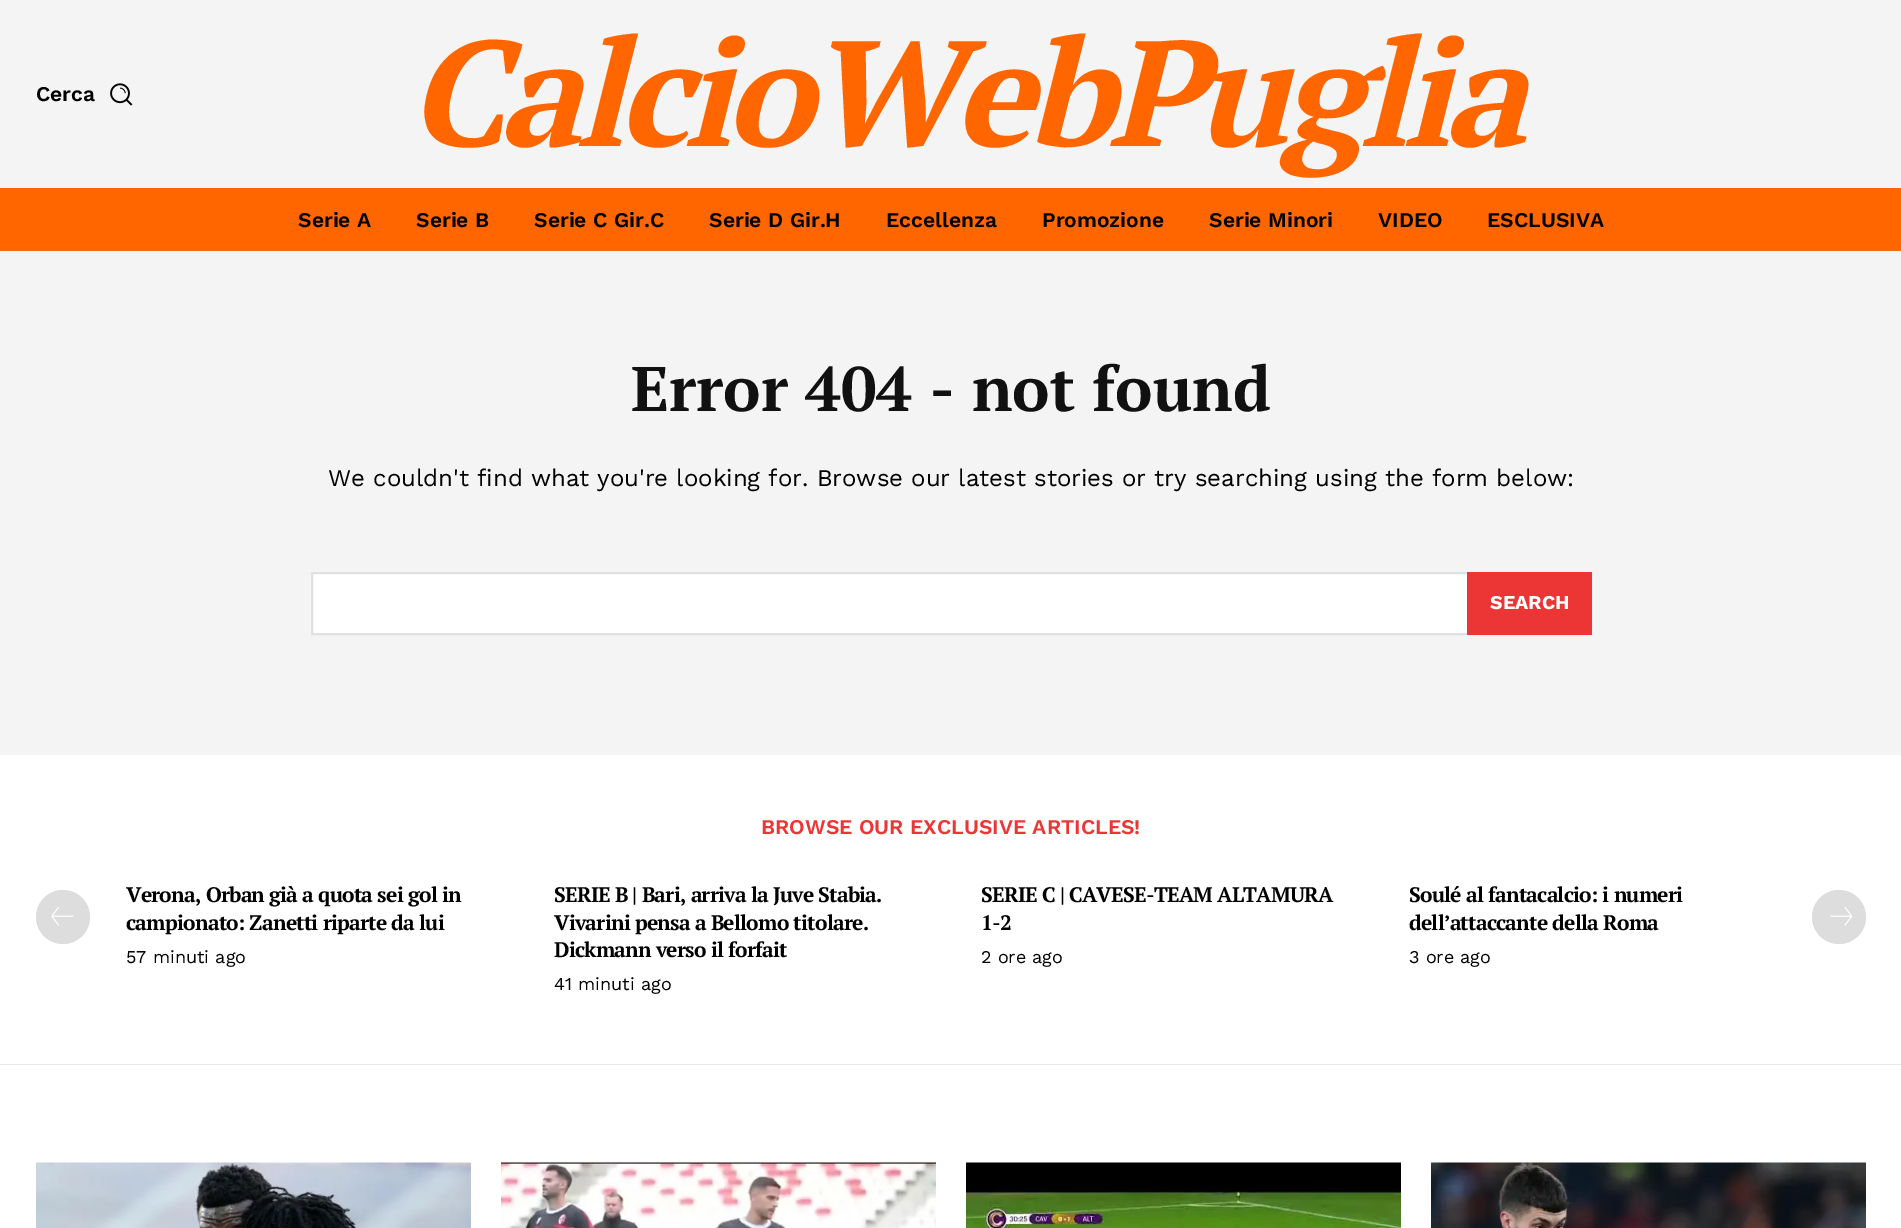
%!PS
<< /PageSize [1901 1228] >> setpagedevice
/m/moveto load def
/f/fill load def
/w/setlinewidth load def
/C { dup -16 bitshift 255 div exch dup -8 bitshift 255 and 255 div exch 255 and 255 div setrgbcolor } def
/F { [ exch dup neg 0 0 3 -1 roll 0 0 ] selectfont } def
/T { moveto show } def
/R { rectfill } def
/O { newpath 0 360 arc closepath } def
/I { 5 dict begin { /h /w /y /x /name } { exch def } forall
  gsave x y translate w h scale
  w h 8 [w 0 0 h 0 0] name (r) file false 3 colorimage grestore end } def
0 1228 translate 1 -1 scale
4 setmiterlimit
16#FFFFFF C
0 0 1901 1228 R
16#F4F4F4 C
0 0 1901 188 R
/WorkSans-SemiBold 21 F
16#000000 C
(Cerca) 36 101 T
(1.rgb) 110 83 23 23 I
/PTSerif-BoldItalic 150 F
16#FF6600 C
408 146 m -7.5 0 (CalcioWebPuglia) ashow
0 188 1901 63 R
/WorkSans-SemiBold 21 F
16#000000 C
(Serie A) 298 227 T
(Serie B) 416 227 T
(Serie C Gir.C) 534 227 T
(Serie D Gir.H) 709 227 T
(Eccellenza) 886 227 T
(Promozione) 1042 227 T
(Serie Minori) 1209 227 T
(VIDEO) 1378 227 T
(ESCLUSIVA) 1487 227 T
16#F4F4F4 C
0 251 1901 504 R
/PTSerif-Bold 63 F
16#111111 C
(Error 404 - not found) 631 411 T
/WorkSans-Regular 24 F
16#000000 C
(We couldn't find what you're looking for. Browse our latest stories or try searching using the form below:) 328 486 T
16#FFFFFF C
313 574 1154 59 R
16#E1E1E1 C
2 w
312 573 1279 61 rectstroke
16#EC3535 C
1467 572 125 63 R
/WorkSans-Bold 19.5 F
16#FFFFFF C
(SEARCH) 1490 609 T
/WorkSans-SemiBold 21 F
16#EC3535 C
(BROWSE OUR EXCLUSIVE ARTICLES!) 761 834 T
/PTSerif-Bold 21 F
16#000000 C
126 902 m -.75 0 (Verona, Orban già a quota sei gol in) ashow
126 930 m -.75 0 (campionato: Zanetti riparte da lui) ashow
/WorkSans-Regular 18 F
(57 minuti ago) 126 963 T
/PTSerif-Bold 21 F
554 902 m -.75 0 (SERIE B | Bari, arriva la Juve Stabia.) ashow
554 930 m -.75 0 (Vivarini pensa a Bellomo titolare.) ashow
554 957 m -.75 0 (Dickmann verso il forfait) ashow
/WorkSans-Regular 18 F
(41 minuti ago) 554 990 T
/PTSerif-Bold 21 F
981 902 m -.75 0 (SERIE C | CAVESE-TEAM ALTAMURA) ashow
981 930 m -.75 0 (1-2) ashow
/WorkSans-Regular 18 F
(2 ore ago) 981 963 T
/PTSerif-Bold 21 F
1409 902 m -.75 0 (Soulé al fantacalcio: i numeri) ashow
1409 930 m -.75 0 (dell’attaccante della Roma) ashow
/WorkSans-Regular 18 F
(3 ore ago) 1409 963 T
16#DDDDDD C
63 917 27 O f
(2.rgb) 51 907 23 19 I
1839 917 27 O f
(3.rgb) 1830 907 23 19 I
16#EAEAEA C
0 1064 1901 1 R
(4.rgb) 36 1162 435 66 I
(5.rgb) 501 1162 435 66 I
(6.rgb) 966 1162 435 66 I
(7.rgb) 1431 1162 435 66 I
showpage
